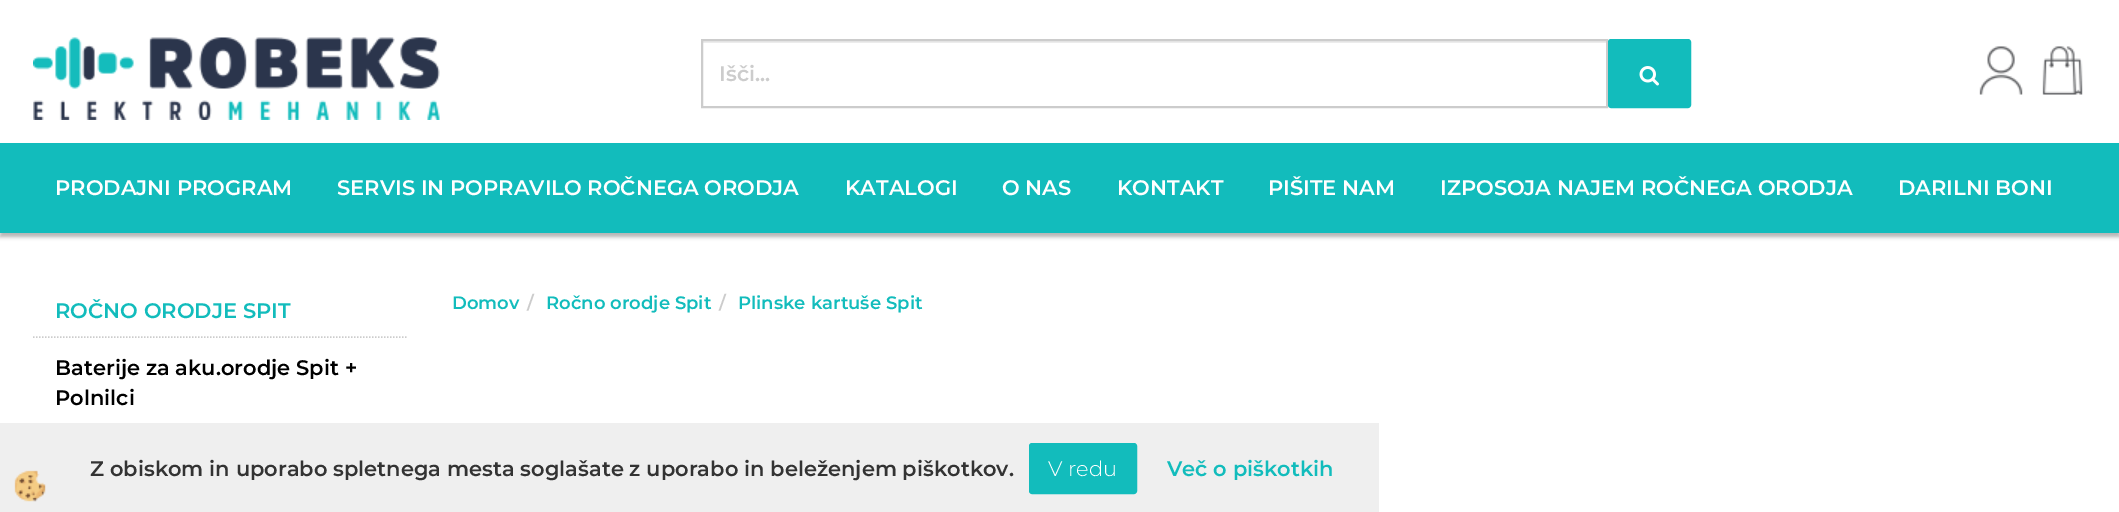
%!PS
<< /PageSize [2119 512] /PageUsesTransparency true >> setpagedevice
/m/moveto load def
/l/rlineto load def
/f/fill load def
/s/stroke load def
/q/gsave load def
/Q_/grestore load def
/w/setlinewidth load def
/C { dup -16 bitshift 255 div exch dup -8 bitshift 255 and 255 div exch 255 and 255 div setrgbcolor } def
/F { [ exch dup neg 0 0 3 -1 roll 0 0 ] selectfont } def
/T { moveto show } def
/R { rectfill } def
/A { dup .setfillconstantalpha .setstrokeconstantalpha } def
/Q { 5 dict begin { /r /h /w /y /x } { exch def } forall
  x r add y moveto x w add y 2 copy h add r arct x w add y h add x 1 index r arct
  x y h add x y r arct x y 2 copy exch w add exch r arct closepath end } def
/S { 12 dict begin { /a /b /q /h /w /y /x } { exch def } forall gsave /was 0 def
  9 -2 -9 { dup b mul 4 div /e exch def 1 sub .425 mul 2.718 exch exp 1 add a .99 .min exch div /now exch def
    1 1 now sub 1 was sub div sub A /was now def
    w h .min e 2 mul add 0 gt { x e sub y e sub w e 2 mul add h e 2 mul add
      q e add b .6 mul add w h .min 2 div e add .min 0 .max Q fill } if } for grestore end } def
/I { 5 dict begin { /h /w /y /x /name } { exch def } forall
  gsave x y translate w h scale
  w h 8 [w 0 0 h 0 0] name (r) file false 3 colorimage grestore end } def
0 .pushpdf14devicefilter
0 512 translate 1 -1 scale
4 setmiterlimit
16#FFFFFF C
0 0 2119 512 R
(1.rgb) 33 37 407 83 I
16#ECECEC C
702 41 905 2 R
16#CCCCCC C
2 w
702 40 905 67 rectstroke
/Montserrat-SemiBold 21 F
(Išči...) 719 81 T
16#12BCBC C
1609 40 81 67 2 Q q f Q_
s
(2.rgb) 1639 66 20 20 I
(3.rgb) 1979 46 44 49 I
(4.rgb) 2042 46 41 49 I
16#000000 C
0 147 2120 90 0 2 .3 S
16#12BCBC C
0 143 2119 90 R
16#FFFFFF C
(PRODAJNI PROGRAM) 55 195 T
(SERVIS IN POPRAVILO ROČNEGA ORODJA) 337 195 T
(KATALOGI) 845 195 T
(O NAS) 1002 195 T
(KONTAKT) 1117 195 T
(PIŠITE NAM) 1268 195 T
(IZPOSOJA NAJEM ROČNEGA ORODJA) 1440 195 T
(DARILNI BONI) 1898 195 T
16#CCCCCC C
1.5 w
[1.5 1.5] 0 setdash
33 337 m 375 0 l s
16#12BCBC C
(ROČNO ORODJE SPIT) 55 318 T
16#000000 C
(Baterije za aku.orodje Spit +) 55 375 T
(Polnilci) 55 405 T
/Montserrat-SemiBold 18 F
16#12BCBC C
(Domov) 452 309 T
16#CCCCCC C
(/) 527 309 T
16#12BCBC C
(Ročno orodje Spit) 546 309 T
16#CCCCCC C
(/) 719 309 T
16#12BCBC C
(Plinske kartuše Spit) 738 309 T
16#EFEFEF C
0 423 1379 89 R
(5.rgb) 14 470 32 32 I
/Montserrat-SemiBold 21 F
16#333333 C
(Z obiskom in uporabo spletnega mesta soglašate z uporabo in beleženjem piškotkov.) 90 476 T
16#12BCBC C
1030 444 106 49 2 Q q f Q_
2 w
[] 0 setdash
s
/Montserrat-Light 21 F
16#FFFFFF C
(V redu) 1048 476 T
/Montserrat-SemiBold 21 F
16#12BCBC C
(Več o piškotkih) 1167 476 T
.poppdf14devicefilter showpage
